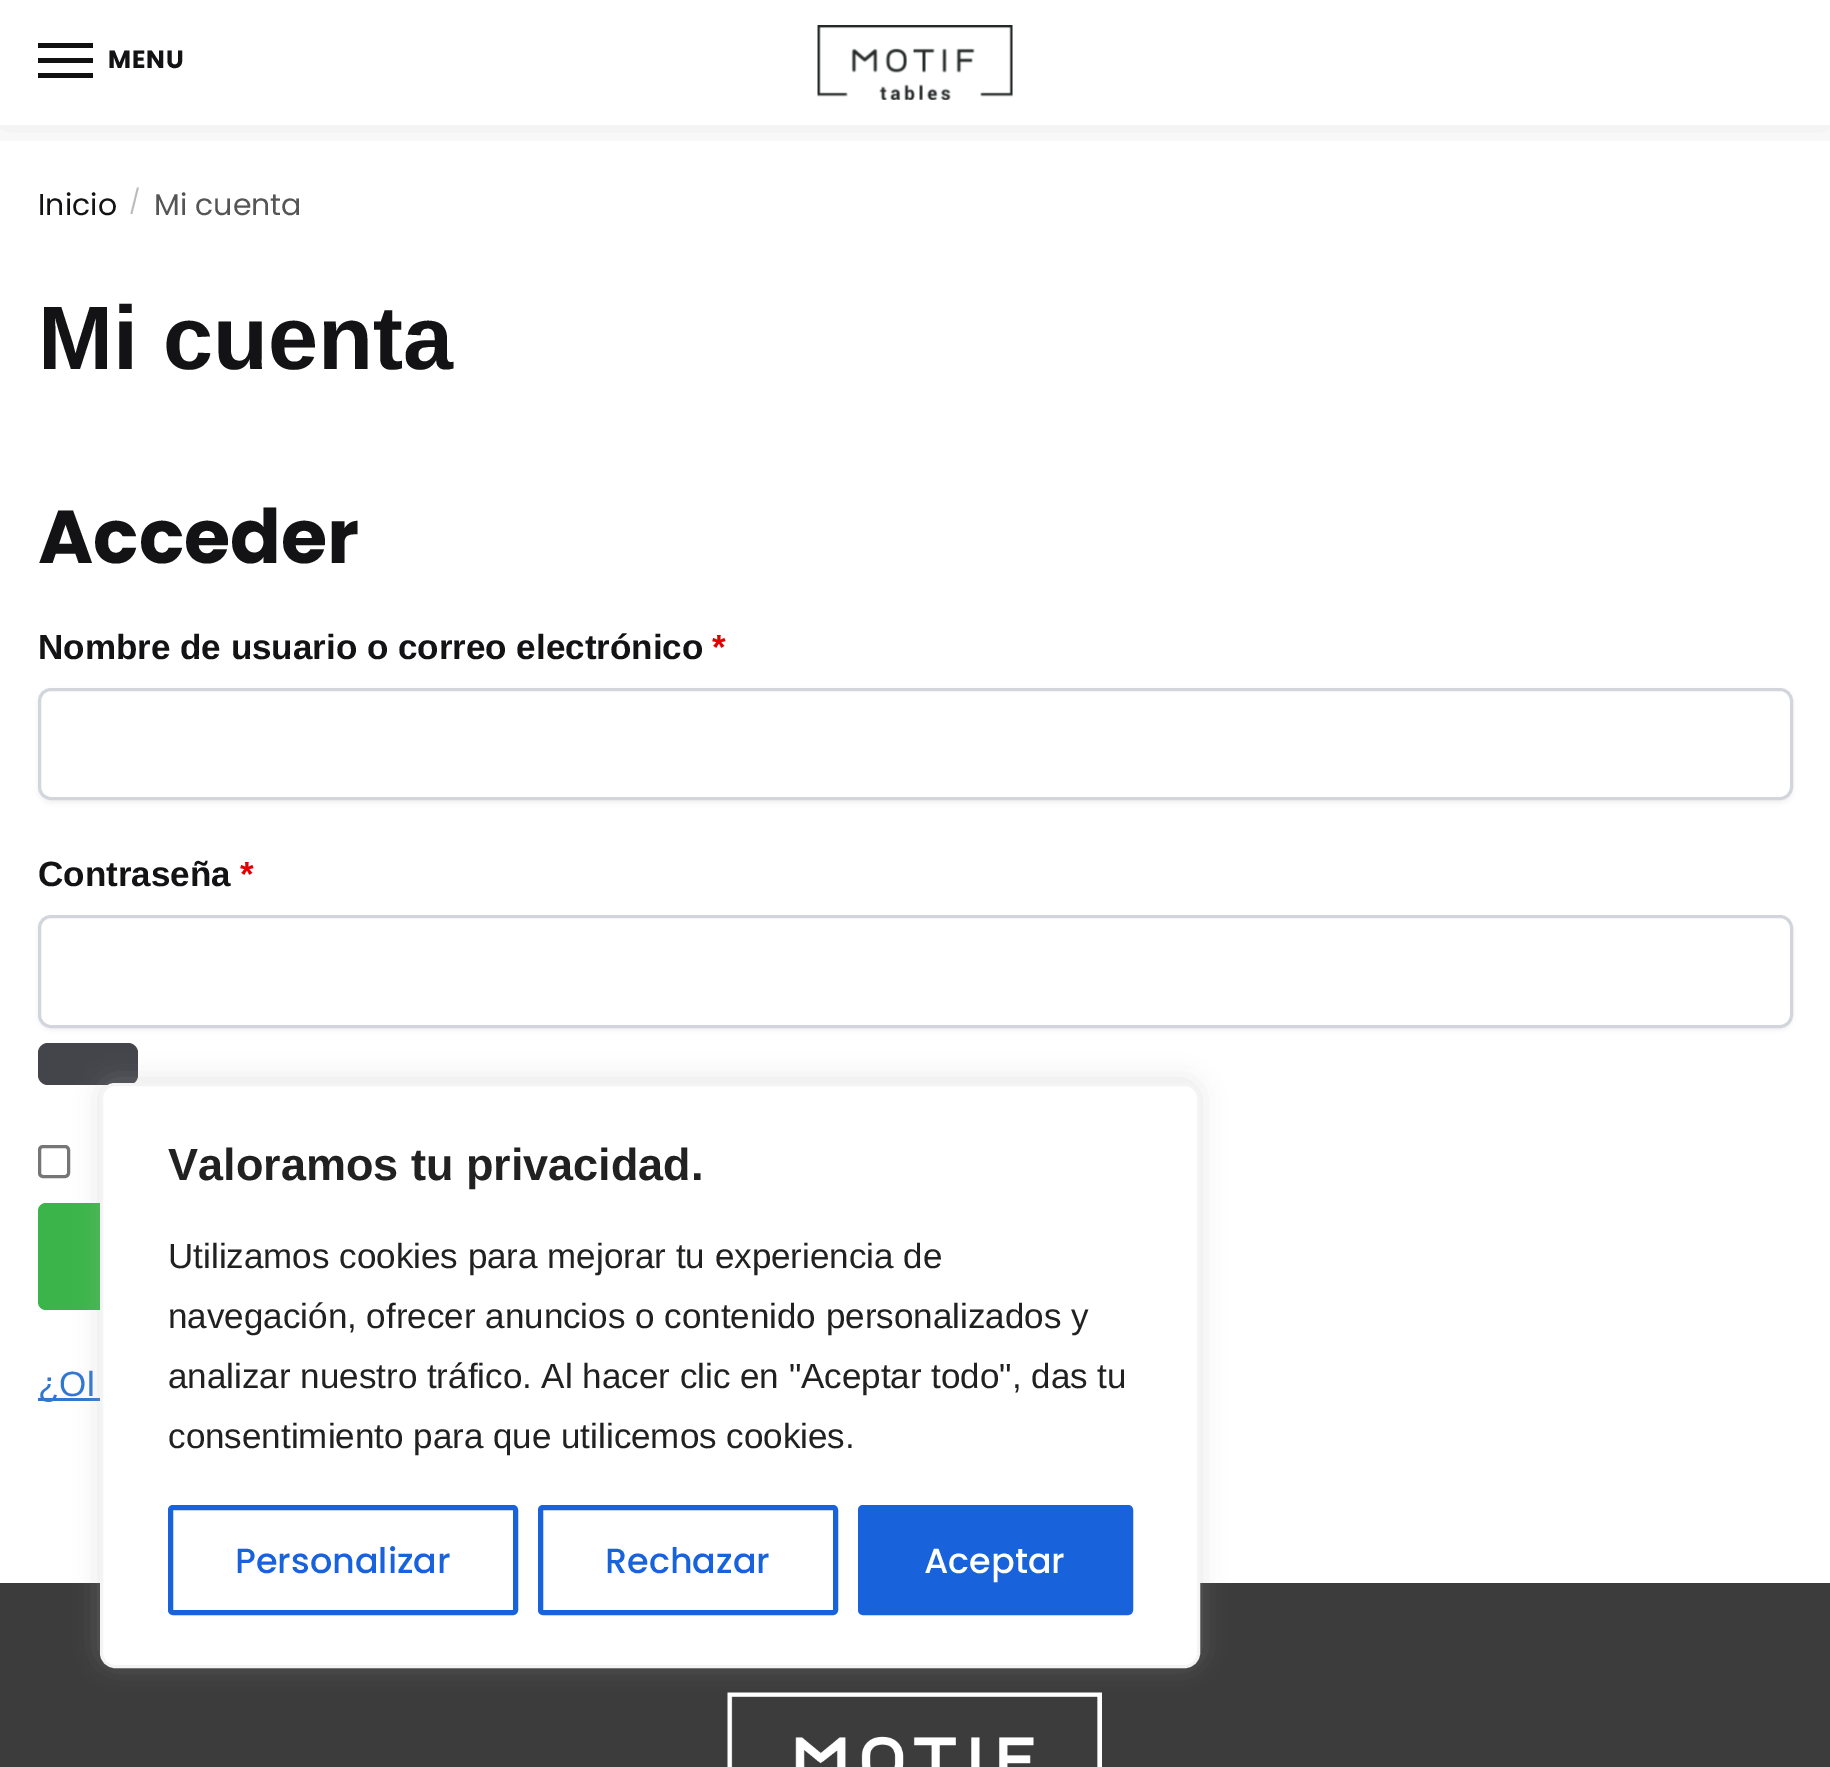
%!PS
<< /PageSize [1830 1767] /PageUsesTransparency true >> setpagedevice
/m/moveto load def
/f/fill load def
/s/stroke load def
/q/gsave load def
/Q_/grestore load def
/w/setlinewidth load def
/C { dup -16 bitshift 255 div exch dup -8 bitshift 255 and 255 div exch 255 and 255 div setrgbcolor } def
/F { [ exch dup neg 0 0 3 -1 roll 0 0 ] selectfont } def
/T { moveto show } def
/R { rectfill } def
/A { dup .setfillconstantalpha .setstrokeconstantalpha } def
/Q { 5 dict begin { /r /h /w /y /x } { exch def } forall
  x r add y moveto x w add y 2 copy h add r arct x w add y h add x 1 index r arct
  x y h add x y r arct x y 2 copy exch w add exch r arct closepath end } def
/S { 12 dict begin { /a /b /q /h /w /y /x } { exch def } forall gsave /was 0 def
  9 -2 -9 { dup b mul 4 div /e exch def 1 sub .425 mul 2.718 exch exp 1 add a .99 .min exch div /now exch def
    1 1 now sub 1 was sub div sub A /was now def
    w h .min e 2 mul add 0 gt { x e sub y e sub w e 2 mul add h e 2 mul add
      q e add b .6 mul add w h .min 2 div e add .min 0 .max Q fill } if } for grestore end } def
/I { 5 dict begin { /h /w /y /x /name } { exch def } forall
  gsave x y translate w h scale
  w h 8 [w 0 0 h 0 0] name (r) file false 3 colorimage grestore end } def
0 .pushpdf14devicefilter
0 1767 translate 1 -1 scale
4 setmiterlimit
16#FFFFFF C
0 0 1830 1767 R
q
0 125 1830 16 rectclip
16#000000 C
0 3 1830 125 0 19 .08 S
Q_
16#111111 C
38 43 55 5 R
38 58 55 5 R
/Poppins-Bold 25 F
16#131315 C
108 68 m 1 0 (MENU) ashow
16#111111 C
38 73 55 5 R
(1.rgb) 817 25 196 75 I
/Poppins-Regular 30 F
16#131315 C
(Inicio) 38 215 T
/Poppins-Regular 24 F
16#BBBBBB C
(/) 129 210 T
/Poppins-Regular 30 F
16#555555 C
(Mi cuenta) 154 215 T
/LiberationSans-Bold 90 F
16#131315 C
(Mi cuenta) 38 369 T
/Poppins-Bold 75 F
(Acceder) 38 563 T
/LiberationSans-Bold 35 F
(Nombre de usuario o correo electrónico) 38 659 T
16#DF0202 C
(*) 712 659 T
16#000000 C
38 690 1755 113 13 2.5 .05 S
16#FFFFFF C
39.5 689.5 1752 109 11.5 Q q f Q_
16#D2D6DC C
3 w
s
16#131315 C
(Contraseña) 38 886 T
16#DF0202 C
(*) 240 886 T
16#000000 C
38 918 1755 112 13 2.5 .05 S
16#FFFFFF C
39.5 916.5 1752 110 11.5 Q q f Q_
16#D2D6DC C
s
16#43454B C
38 1043 100 42 10 Q f
16#767676 C
39.5 1146.5 29 30 3.5 Q s
16#3BB54A C
38 1203 247 107 8 Q f
16#3077D0 C
38 1398 62 3 R
/LiberationSans-Regular 35 F
(¿Ol) 38 1396 T
16#3C3C3C C
0 1583 1830 184 R
(2.rgb) 727 1692 375 75 I
16#ACABAB C
100 1080 1100 585 15 12.5 .3 S
16#FFFFFF C
101.5 1084.5 1097 582 13.5 Q q f Q_
16#F4F4F4 C
s
/LiberationSans-Bold 45 F
16#212121 C
(Valoramos tu privacidad.) 168 1180 T
/LiberationSans-Regular 35 F
(Utilizamos cookies para mejorar tu experiencia de) 168 1268 T
(navegación, ofrecer anuncios o contenido personalizados y) 168 1328 T
(analizar nuestro tráfico. Al hacer clic en "Aceptar todo", das tu) 168 1388 T
(consentimiento para que utilicemos cookies.) 168 1448 T
16#1863DC C
5 w
170.5 1507.5 345 105 2.5 Q s
/Poppins-Medium 35 F
(Personalizar) 235 1573 T
540.5 1507.5 295 105 2.5 Q s
(Rechazar) 605 1573 T
860.5 1507.5 270 105 2.5 Q q f Q_
s
16#FFFFFF C
(Aceptar) 924 1573 T
.poppdf14devicefilter showpage
